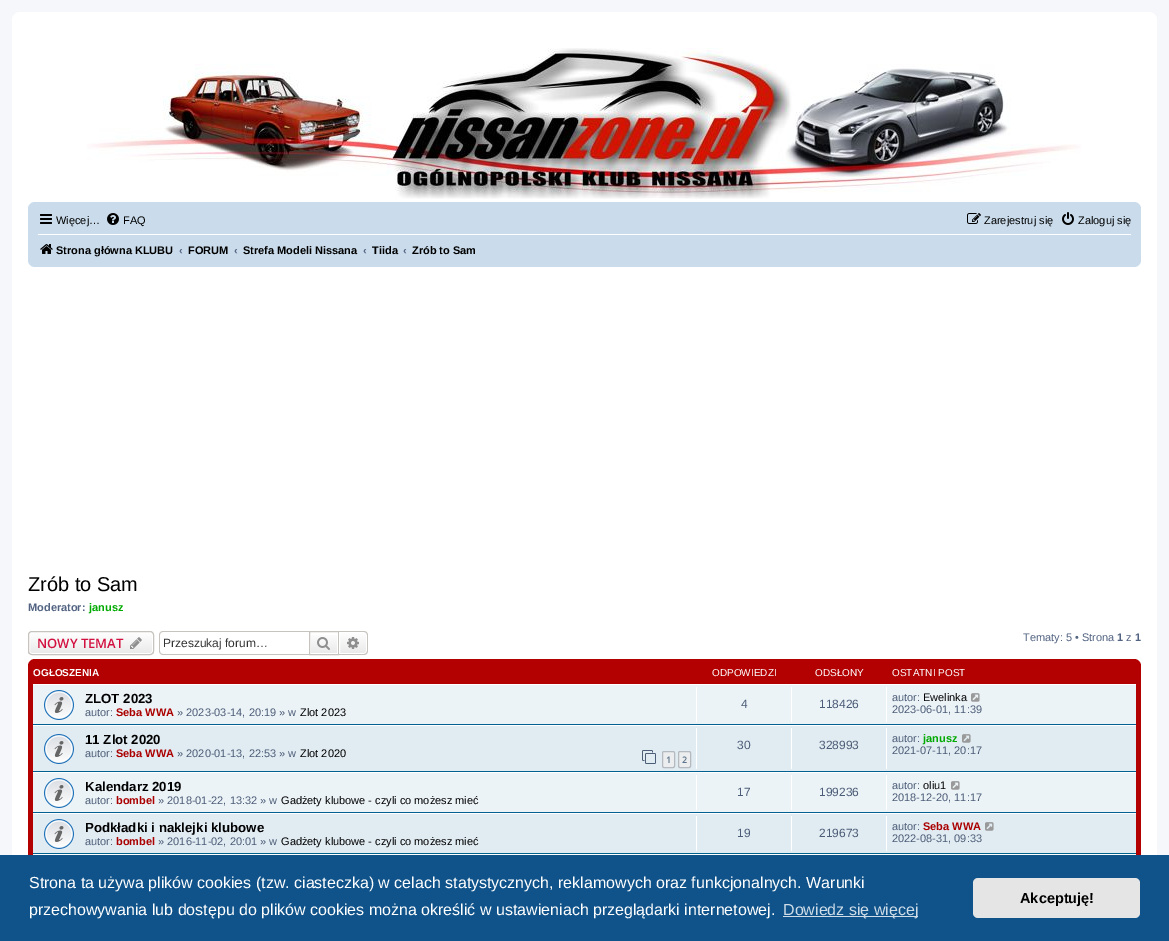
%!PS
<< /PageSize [1169 941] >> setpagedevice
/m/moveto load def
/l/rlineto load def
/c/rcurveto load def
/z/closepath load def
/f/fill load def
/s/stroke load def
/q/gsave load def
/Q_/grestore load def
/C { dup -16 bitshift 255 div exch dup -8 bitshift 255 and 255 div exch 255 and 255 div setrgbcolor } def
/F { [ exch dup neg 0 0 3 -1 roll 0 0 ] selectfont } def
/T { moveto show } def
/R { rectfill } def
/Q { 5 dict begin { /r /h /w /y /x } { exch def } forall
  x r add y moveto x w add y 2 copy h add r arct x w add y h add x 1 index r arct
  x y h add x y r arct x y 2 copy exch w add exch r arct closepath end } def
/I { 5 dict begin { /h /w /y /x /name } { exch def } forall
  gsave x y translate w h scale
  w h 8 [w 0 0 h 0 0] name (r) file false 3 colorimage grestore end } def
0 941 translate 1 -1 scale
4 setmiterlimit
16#F5F7FA C
0 0 1169 941 R
16#FFFFFF C
12 12 1145 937 8 Q f
(1.rgb) 87 48 994 151 I
16#CADCEB C
28 202 1113 65 7 Q f
(2.rgb) 40 214 12 10 I
/LiberationSans-Regular 11 F
16#000000 C
(Więcej…) 56 224 T
(3.rgb) 107 213 12 12 I
(FAQ) 123 224 T
(4.rgb) 967 213 14 11 I
(Zarejestruj się) 984 224 T
(5.rgb) 1062 212 12 13 I
(Zaloguj się) 1078 224 T
16#FFFFFF C
38 234 1093 1 R
(6.rgb) 40 244 13 10 I
/LiberationSans-Bold 11 F
16#000000 C
(Strona główna KLUBU) 56 254 T
16#536482 C
(‹) 179 254 T
16#000000 C
(FORUM) 188 254 T
16#536482 C
(‹) 234 254 T
16#000000 C
(Strefa Modeli Nissana) 243 254 T
16#536482 C
(‹) 363 254 T
16#000000 C
(Tiida) 372 254 T
16#536482 C
(‹) 403 254 T
16#000000 C
(Zrób to Sam) 412 254 T
/LiberationSans-Regular 20 F
(Zrób to Sam) 28 591 T
/LiberationSans-Bold 11 F
16#536482 C
(Moderator:) 28 611 T
16#00AA00 C
(janusz) 89 611 T
q
28 631 126 24 4 Q clip newpath
q 28 632 m 126 0 l 0 22 l -126 0 l z clip newpath
<< /ShadingType 2 /ColorSpace /DeviceRGB /Coords [91 632 91 654] /Extend [true true] /Function << /FunctionType 2 /Domain [0 1] /C0 [1 1 1] /C1 [.914 .914 .914] /N 1 >> >> shfill Q_
Q_
16#FFFFFF C
29.5 632.5 123 21 2.5 Q s
16#C7C3BF C
28.5 631.5 125 23 3.5 Q s
/OpenSans-SemiBold 13 F
16#D31141 C
(NOWY TEMAT) 37 648 T
(7.rgb) 130 637 12 12 I
16#C7C3BF C
163 631 m 146 0 l 0 24 l -146 0 l -2 0 -4 -2 -4 -4 c 0 -16 l 0 -2 2 -4 4 -4 c z 163 632 m 146 0 l 0 22 l -146 0 l -2 0 -3 -1 -3 -3 c 0 -16 l 0 -2 1 -3 3 -3 c z eofill
/LiberationSans-Regular 12 F
16#333333 C
(Przeszukaj forum…) 163 647 T
q 311 635 m 26 0 l 0 18 l -26 0 l z clip newpath
<< /ShadingType 2 /ColorSpace /DeviceRGB /Coords [324 632 324 654] /Extend [true true] /Function << /FunctionType 2 /Domain [0 1] /C0 [1 1 1] /C1 [.914 .914 .914] /N 1 >> >> shfill Q_
16#C7C3BF C
309.5 631.5 29 23 rectstroke
(8.rgb) 317 637 13 13 I
q 339.5 632.5 m 24.5 0 l 1.5 0 2.5 1 2.5 2.5 c 0 16 l 0 1.5 -1 2.5 -2.5 2.5 c -24.5 0 l z clip newpath
<< /ShadingType 2 /ColorSpace /DeviceRGB /Coords [353 632 353 654] /Extend [true true] /Function << /FunctionType 2 /Domain [0 1] /C0 [1 1 1] /C1 [.914 .914 .914] /N 1 >> >> shfill Q_
16#FFFFFF C
339.5 632.5 m 24.5 0 l 1.5 0 2.5 1 2.5 2.5 c 0 16 l 0 1.5 -1 2.5 -2.5 2.5 c -24.5 0 l z s
16#C7C3BF C
339 631 m 25 0 l 2 0 4 2 4 4 c 0 16 l 0 2 -2 4 -4 4 c -25 0 l z 339 632 m 25 0 l 1.5 0 3 1.5 3 3 c 0 16 l 0 1.5 -1.5 3 -3 3 c -25 0 l z eofill
(9.rgb) 347 637 12 12 I
/LiberationSans-Regular 11 F
16#536482 C
(Tematy: 5 • Strona) 1023 641 T
/LiberationSans-Bold 11 F
(1) 1117 641 T
/LiberationSans-Regular 11 F
(z) 1126 641 T
/LiberationSans-Bold 11 F
(1) 1135 641 T
16#B30000 C
28 659 1113 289 7 Q f
/LiberationSans-Bold 10 F
16#FFFFFF C
(OGŁOSZENIA) 33 676 T
/LiberationSans-Regular 10 F
(ODPOWIEDZI) 712 676 T
(ODSŁONY) 815 676 T
(OSTATNI POST) 892 676 T
16#ECF3F7 C
33 685 1103 39 R
16#FFFFFF C
33 684 1103 1 R
16#00608F C
33 724 1103 1 R
(10.rgb) 44 690 30 30 I
/LiberationSans-Bold 13.25 F
16#000000 C
(ZLOT 2023) 85 703 T
/LiberationSans-Regular 11 F
16#4C5D77 C
(autor:) 85 716 T
/LiberationSans-Bold 11 F
16#AA0000 C
(Seba WWA) 116 716 T
/LiberationSans-Regular 11 F
16#4C5D77 C
(» 2023-03-14, 20:19 » w) 177 716 T
16#000000 C
(Zlot 2023) 300 716 T
16#FFFFFF C
696 687 1 35 R
/LiberationSans-Regular 12 F
16#4C5D77 C
(4) 741 708 T
16#FFFFFF C
791 687 1 35 R
16#4C5D77 C
(118426) 819 708 T
16#FFFFFF C
886 687 1 35 R
/LiberationSans-Regular 11 F
16#4C5D77 C
(autor:) 892 701 T
16#000000 C
(Ewelinka) 923 701 T
(11.rgb) 971 693 9 9 I
16#4C5D77 C
(2023-06-01, 11:39) 892 713 T
16#E1EBF2 C
33 726 1103 45 R
16#FFFFFF C
33 725 1103 1 R
16#00608F C
33 771 1103 1 R
(12.rgb) 44 734 30 30 I
/LiberationSans-Bold 13.25 F
16#000000 C
(11 Zlot 2020) 85 744 T
/LiberationSans-Regular 11 F
16#4C5D77 C
(autor:) 85 757 T
/LiberationSans-Bold 11 F
16#AA0000 C
(Seba WWA) 116 757 T
/LiberationSans-Regular 11 F
16#4C5D77 C
(» 2020-01-13, 22:53 » w) 177 757 T
16#000000 C
(Zlot 2020) 300 757 T
(13.rgb) 642 750 14 14 I
16#ECEDEE C
662.5 751.5 12 16 1.5 Q q f Q_
16#B4BAC0 C
s
/OpenSans-SemiBold 9 F
16#5C758C C
(1) 666 763 T
16#ECEDEE C
678.5 751.5 12 16 1.5 Q q f Q_
16#B4BAC0 C
s
16#5C758C C
(2) 682 763 T
16#FFFFFF C
696 728 1 41 R
/LiberationSans-Regular 12 F
16#4C5D77 C
(30) 737 749 T
16#FFFFFF C
791 728 1 41 R
16#4C5D77 C
(328993) 819 749 T
16#FFFFFF C
886 728 1 41 R
/LiberationSans-Regular 11 F
16#4C5D77 C
(autor:) 892 742 T
/LiberationSans-Bold 11 F
16#00AA00 C
(janusz) 923 742 T
(14.rgb) 962 734 9 9 I
/LiberationSans-Regular 11 F
16#4C5D77 C
(2021-07-11, 20:17) 892 754 T
16#ECF3F7 C
33 773 1103 39 R
16#FFFFFF C
33 772 1103 1 R
16#00608F C
33 812 1103 1 R
(10.rgb) 44 778 30 30 I
/LiberationSans-Bold 13.25 F
16#000000 C
(Kalendarz 2019) 85 791 T
/LiberationSans-Regular 11 F
16#4C5D77 C
(autor:) 85 804 T
/LiberationSans-Bold 11 F
16#AA0000 C
(bombel) 116 804 T
/LiberationSans-Regular 11 F
16#4C5D77 C
(» 2018-01-22, 13:32 » w) 158 804 T
16#000000 C
(Gadżety klubowe - czyli co możesz mieć) 281 804 T
16#FFFFFF C
696 775 1 35 R
/LiberationSans-Regular 12 F
16#4C5D77 C
(17) 737 796 T
16#FFFFFF C
791 775 1 35 R
16#4C5D77 C
(199236) 819 796 T
16#FFFFFF C
886 775 1 35 R
/LiberationSans-Regular 11 F
16#4C5D77 C
(autor:) 892 789 T
16#000000 C
(oliu1) 923 789 T
(11.rgb) 951 781 9 9 I
16#4C5D77 C
(2018-12-20, 11:17) 892 801 T
16#E1EBF2 C
33 814 1103 39 R
16#FFFFFF C
33 813 1103 1 R
16#00608F C
33 853 1103 1 R
(12.rgb) 44 819 30 30 I
/LiberationSans-Bold 13.25 F
16#000000 C
(Podkładki i naklejki klubowe) 85 832 T
/LiberationSans-Regular 11 F
16#4C5D77 C
(autor:) 85 845 T
/LiberationSans-Bold 11 F
16#AA0000 C
(bombel) 116 845 T
/LiberationSans-Regular 11 F
16#4C5D77 C
(» 2016-11-02, 20:01 » w) 158 845 T
16#000000 C
(Gadżety klubowe - czyli co możesz mieć) 281 845 T
16#FFFFFF C
696 816 1 35 R
/LiberationSans-Regular 12 F
16#4C5D77 C
(19) 737 837 T
16#FFFFFF C
791 816 1 35 R
16#4C5D77 C
(219673) 819 837 T
16#FFFFFF C
886 816 1 35 R
/LiberationSans-Regular 11 F
16#4C5D77 C
(autor:) 892 830 T
/LiberationSans-Bold 11 F
16#AA0000 C
(Seba WWA) 923 830 T
(14.rgb) 985 822 9 9 I
/LiberationSans-Regular 11 F
16#4C5D77 C
(2022-08-31, 09:33) 892 842 T
16#FFFFFF C
33 854 1103 1 R
16#0F538A C
0 855 1169 86 R
/LiberationSans-Regular 16 F
16#FFFFFF C
(Strona ta używa plików cookies \(tzw. ciasteczka\) w celach statystycznych, reklamowych oraz funkcjonalnych. Warunki) 29 888 T
(przechowywania lub dostępu do plików cookies można określić w ustawieniach przeglądarki internetowej.) 29 915 T
16#CFDDE8 C
783 916 135 1 R
(Dowiedz się więcej) 783 915 T
16#E5E5E5 C
973 878 167 40 5 Q f
/LiberationSans-Bold 14.5 F
16#000000 C
(Akceptuję!) 1020 903 T
showpage
